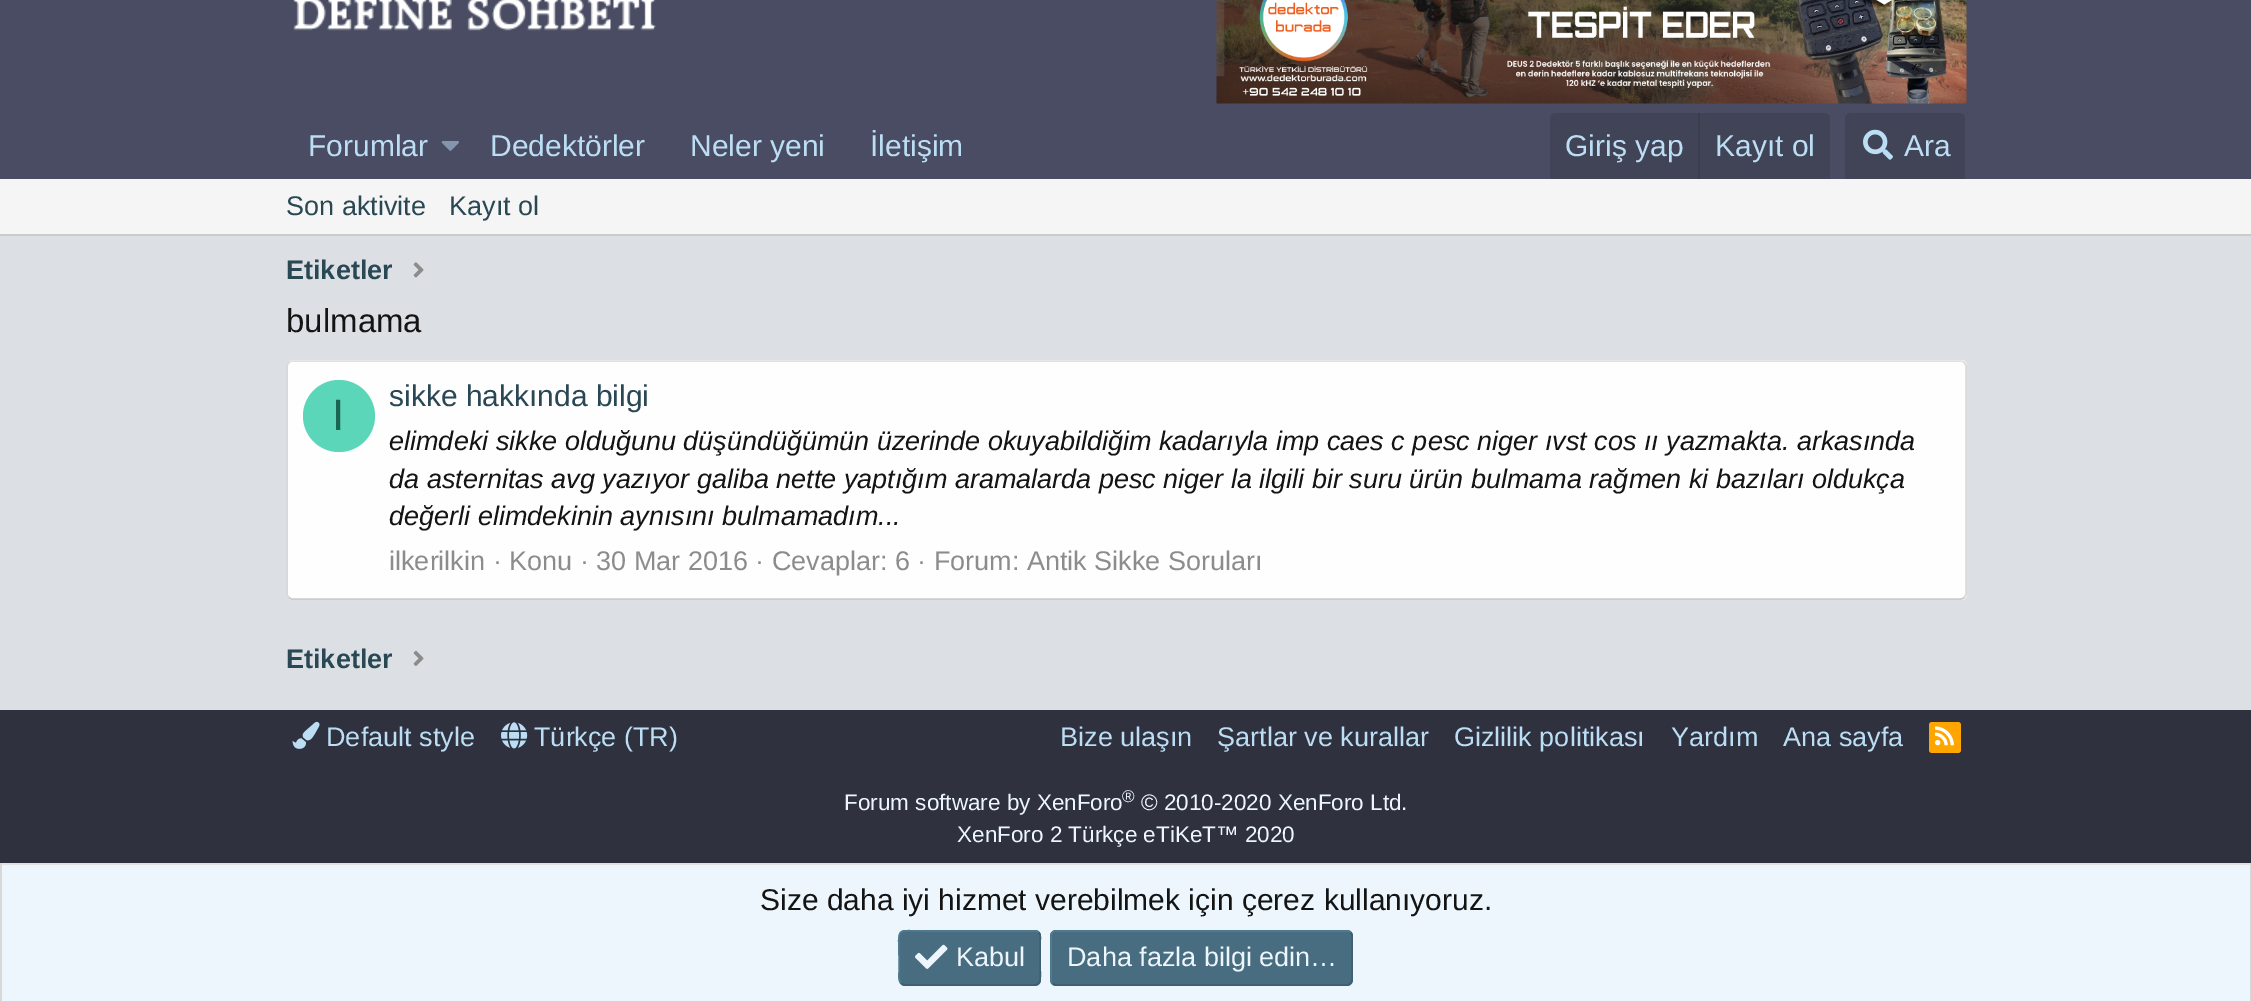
%!PS
<< /PageSize [2251 1001] >> setpagedevice
/m/moveto load def
/l/rlineto load def
/c/rcurveto load def
/z/closepath load def
/f/fill load def
/s/stroke load def
/w/setlinewidth load def
/C { dup -16 bitshift 255 div exch dup -8 bitshift 255 and 255 div exch 255 and 255 div setrgbcolor } def
/F { [ exch dup neg 0 0 3 -1 roll 0 0 ] selectfont } def
/T { moveto show } def
/R { rectfill } def
/O { newpath 0 360 arc closepath } def
/Q { 5 dict begin { /r /h /w /y /x } { exch def } forall
  x r add y moveto x w add y 2 copy h add r arct x w add y h add x 1 index r arct
  x y h add x y r arct x y 2 copy exch w add exch r arct closepath end } def
/I { 5 dict begin { /h /w /y /x /name } { exch def } forall
  gsave x y translate w h scale
  w h 8 [w 0 0 h 0 0] name (r) file false 3 colorimage grestore end } def
0 1001 translate 1 -1 scale
4 setmiterlimit
16#DCE0E4 C
0 0 2251 1001 R
16#494C62 C
0 0 2251 179 R
(1.rgb) 293 0 363 31 I
(2.rgb) 1216 0 751 104 I
/LiberationSans-Regular 30 F
16#BCDEF5 C
(Forumlar) 308 156 T
(3.rgb) 441 141 18 10 I
(Dedektörler) 490 156 T
(Neler yeni) 690 156 T
(İletişim) 870 156 T
16#414456 C
1556 113 m 268 0 l 3.5 0 6 2.5 6 6 c 0 60 l -280 0 l 0 -60 l 0 -3.5 2.5 -6 6 -6 c z f
16#BCDEF5 C
(Giriş yap) 1565 156 T
16#3A3D4C C
1698 113 2 66 R
16#BCDEF5 C
(Kayıt ol) 1715 156 T
16#414456 C
1851 113 m 108 0 l 3.5 0 6 2.5 6 6 c 0 60 l -120 0 l 0 -60 l 0 -3.5 2.5 -6 6 -6 c z f
(4.rgb) 1863 129 30 31 I
16#BCDEF5 C
(Ara) 1904 156 T
16#F5F5F5 C
0 179 2251 55 R
16#CBCBCB C
0 234 2251 2 R
/LiberationSans-Regular 27 F
16#2A4754 C
(Son aktivite) 286 215 T
(Kayıt ol) 449 215 T
/LiberationSans-Bold 27 F
(Etiketler) 286 279 T
(5.rgb) 413 262 11 16 I
/LiberationSans-Regular 33 F
16#141414 C
(bulmama) 286 332 T
16#FEFEFE C
287 360 1680 240 6 Q f
16#E1E1E1 C
1.5 w
289 362.5 m 1 -1 2 -1.5 3.5 -1.5 c 1668 0 l 1.5 0 2.5 .5 3.5 1.5 c s
16#D8D8D8 C
1964 362.5 m 1 1 2 2 2 3.5 c 0 228 l 0 1.5 -1 2.5 -2 3.5 c s
16#CBCBCB C
1964 597.5 m -1 1 -2 1.5 -3.5 1.5 c -1668 0 l -1.5 0 -2.5 -.5 -3.5 -1.5 c s
16#D8D8D8 C
289 597.5 m -1 -1 -2 -2 -2 -3.5 c 0 -228 l 0 -1.5 1 -2.5 2 -3.5 c s
16#5CD6B8 C
339 416 36 O f
/LiberationSans-Regular 44 F
16#1A6653 C
(I) 332 430 T
/LiberationSans-Regular 30 F
16#2A4754 C
(sikke hakkında bilgi) 389 406 T
/LiberationSans-Italic 27 F
16#141414 C
(elimdeki sikke olduğunu düşündüğümün üzerinde okuyabildiğim kadarıyla imp caes c pesc niger ıvst cos ıı yazmakta. arkasında) 389 450 T
(da asternitas avg yazıyor galiba nette yaptığım aramalarda pesc niger la ilgili bir suru ürün bulmama rağmen ki bazıları oldukça) 389 488 T
(değerli elimdekinin aynısını bulmamadım...) 389 525 T
/LiberationSans-Regular 27 F
16#8C8C8C C
(ilkerilkin · Konu · 30 Mar 2016 · Cevaplar: 6 · Forum: Antik Sikke Soruları) 389 570 T
/LiberationSans-Bold 27 F
16#2A4754 C
(Etiketler) 286 668 T
(6.rgb) 413 650 11 16 I
16#2F313F C
0 710 2251 153 R
(7.rgb) 292 721 28 28 I
/LiberationSans-Regular 27 F
16#BCDEF5 C
(Default style) 326 746 T
(8.rgb) 501 722 27 27 I
(Türkçe \(TR\)) 534 746 T
(Bize ulaşın) 1060 746 T
(Şartlar ve kurallar) 1217 746 T
(Gizlilik politikası) 1454 746 T
(Yardım) 1671 746 T
(Ana sayfa) 1783 746 T
16#FFA500 C
1929 722 32 31 3 Q f
(9.rgb) 1935 726 19 20 I
/LiberationSans-Regular 22.5 F
16#EDF6FD C
(Forum software by XenForo) 844 810 T
/LiberationSans-Regular 17 F
(®) 1122 802 T
/LiberationSans-Regular 22.5 F
(© 2010-2020 XenForo Ltd.) 1141 810 T
(XenForo 2 Türkçe eTiKeT™ 2020) 957 842 T
2 865 2248 136 R
16#E1E1E1 C
0 863 2251 2 R
16#D8D8D8 C
2250 863 1 138 R
0 863 2 138 R
/LiberationSans-Regular 30 F
16#141414 C
(Size daha iyi hizmet verebilmek için çerez kullanıyoruz.) 760 910 T
16#486D80 C
899 930 142 56 6 Q f
16#3F5F70 C
1038.5 932.5 m 3 2.5 1.5 8 1.5 10.5 c 0 15 l 0 31.5 5.5 27 -27 27 c -108.5 0 l -1.5 -.5 -2.5 -1 -3.5 -2 c s
16#517B90 C
901 983 m -3 -2.5 -2 -8 -2 -11 c 0 -14 l 0 -32 -5 -27 27 -27 c 109 0 l 1.5 0 2.5 .5 3.5 1.5 c s
(10.rgb) 915 944 33 25 I
/LiberationSans-Regular 27 F
16#EDF6FD C
(Kabul) 956 966 T
16#486D80 C
1050 930 303 56 6 Q f
16#3F5F70 C
1350.5 932.5 m 1 1 1.5 2 1.5 3.5 c 0 43.5 l 0 1.5 -.5 2.5 -1.5 3.5 c -1 1 -2 2 -3.5 2 c -291 0 l -1.5 0 -2.5 -1 -3.5 -2 c s
16#517B90 C
1052.5 983 m -1 -1 -1.5 -2 -1.5 -3.5 c 0 -43.5 l 0 -1.5 .5 -2.5 1.5 -3.5 c 1 -1 2 -1.5 3.5 -1.5 c 291 0 l 1.5 0 2.5 .5 3.5 1.5 c s
16#EDF6FD C
(Daha fazla bilgi edin…) 1067 966 T
showpage
